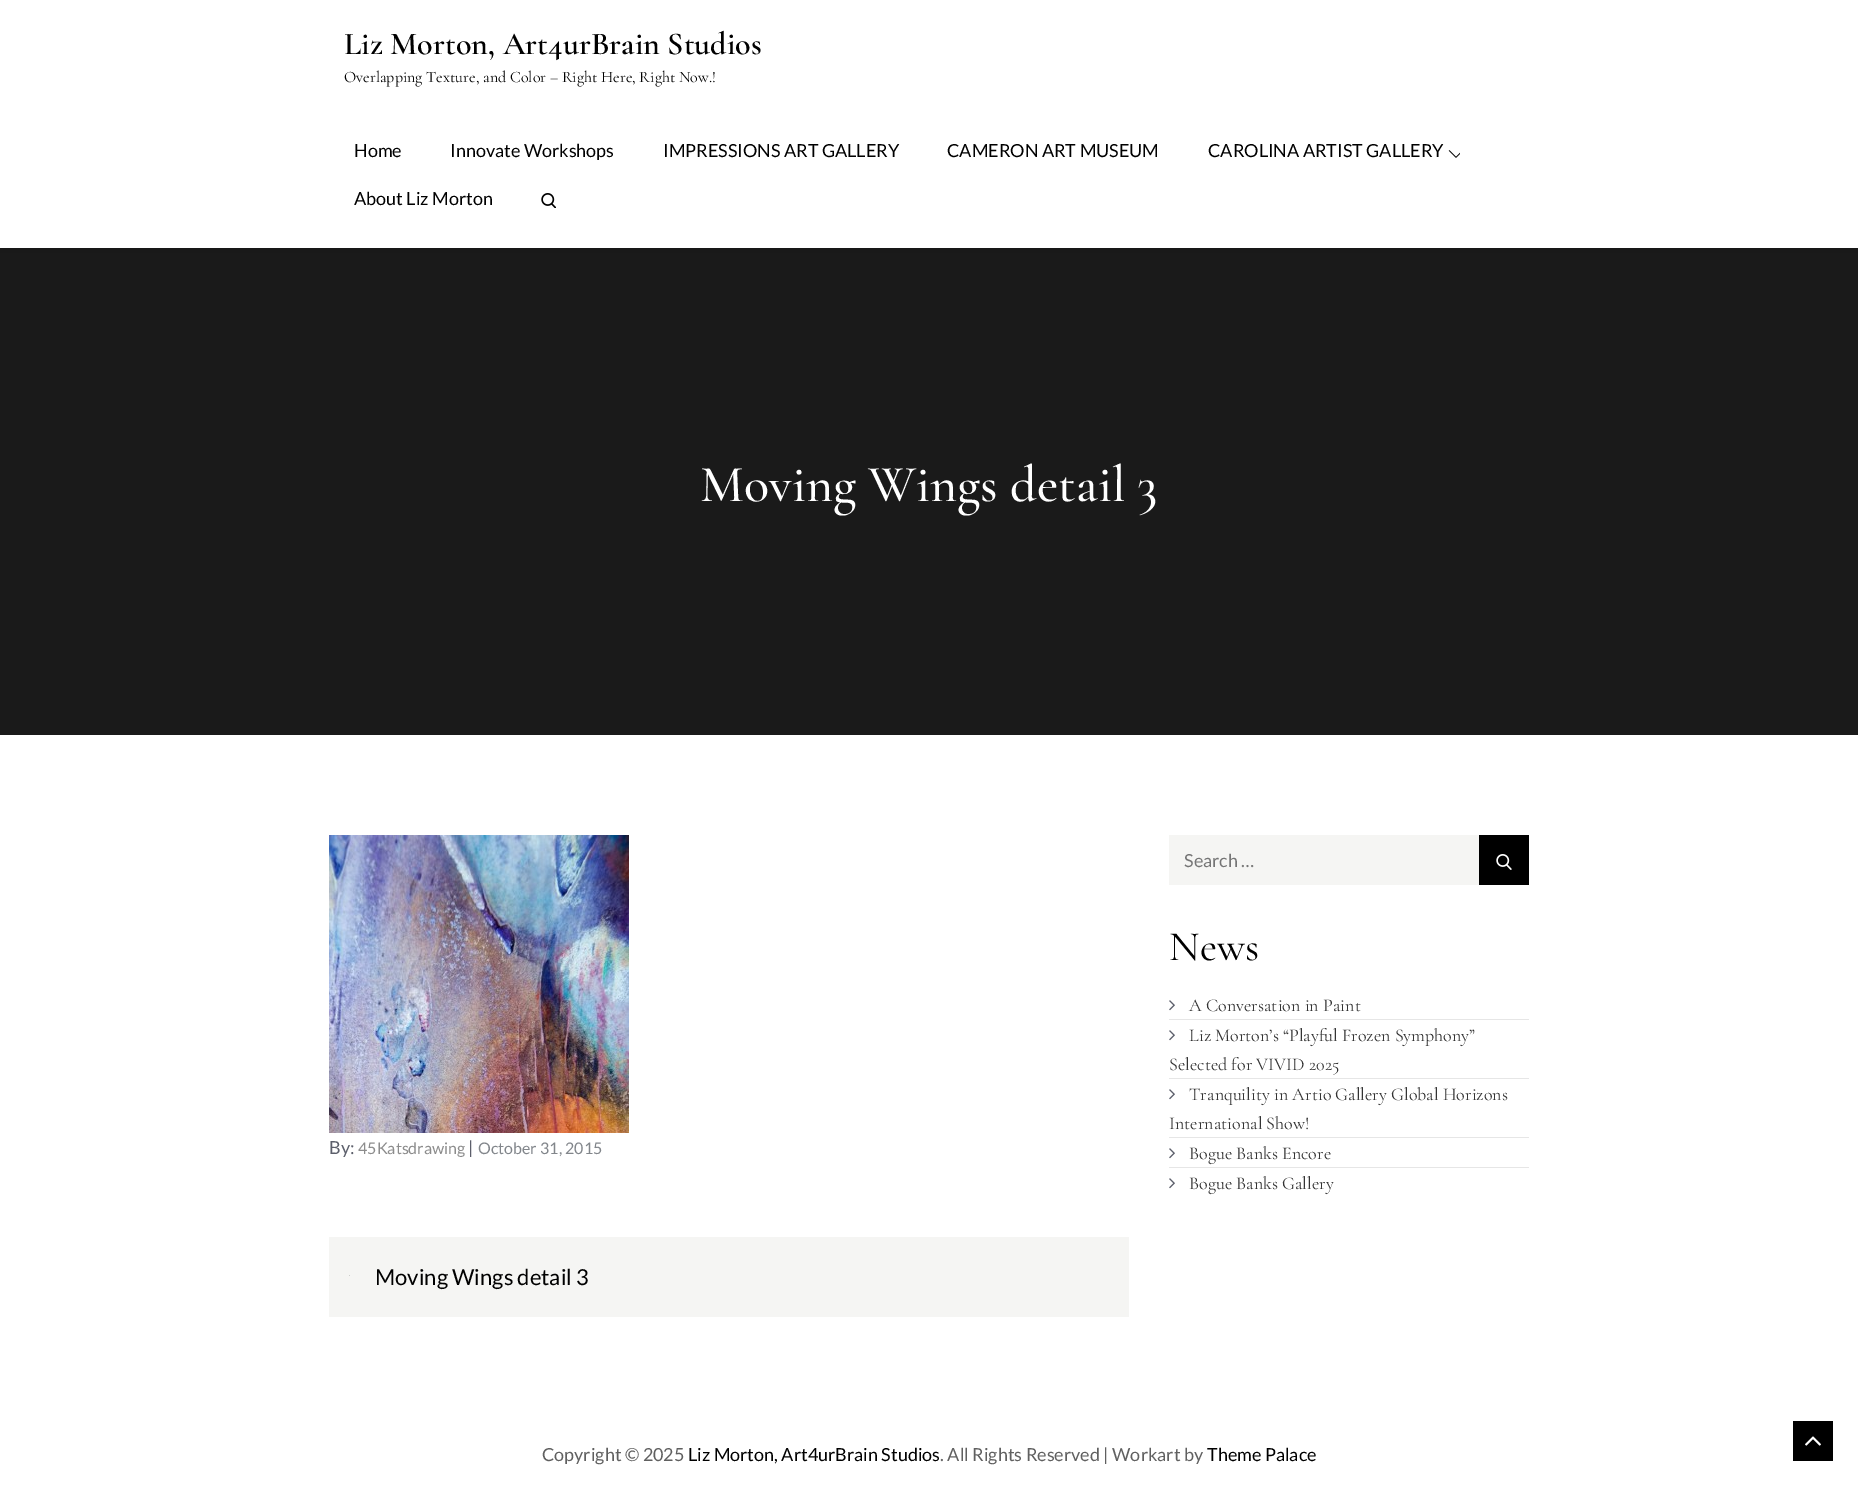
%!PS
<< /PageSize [1858 1486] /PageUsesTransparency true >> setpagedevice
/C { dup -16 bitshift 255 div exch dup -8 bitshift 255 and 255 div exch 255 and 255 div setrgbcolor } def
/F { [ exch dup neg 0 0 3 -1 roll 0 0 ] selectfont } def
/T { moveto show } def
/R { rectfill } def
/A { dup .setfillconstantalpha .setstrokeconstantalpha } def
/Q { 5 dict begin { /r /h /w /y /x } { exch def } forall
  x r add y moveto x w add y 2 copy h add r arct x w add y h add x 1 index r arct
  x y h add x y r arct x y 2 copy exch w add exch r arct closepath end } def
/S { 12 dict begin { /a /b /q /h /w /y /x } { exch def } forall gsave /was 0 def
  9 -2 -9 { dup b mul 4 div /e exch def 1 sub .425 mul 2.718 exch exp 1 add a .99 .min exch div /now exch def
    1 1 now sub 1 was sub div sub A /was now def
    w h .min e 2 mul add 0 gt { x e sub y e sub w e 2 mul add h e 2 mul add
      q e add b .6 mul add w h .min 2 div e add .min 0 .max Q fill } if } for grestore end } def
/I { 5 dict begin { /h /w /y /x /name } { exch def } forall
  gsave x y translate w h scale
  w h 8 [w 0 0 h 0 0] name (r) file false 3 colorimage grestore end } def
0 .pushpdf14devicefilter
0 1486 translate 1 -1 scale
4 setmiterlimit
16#FFFFFF C
0 0 1858 1486 R
16#1A1A1A C
0 248 1858 487 R
16#000000 C
0 0 1858 248 0 7.5 .15 S
16#FFFFFF C
0 0 1858 248 R
/CormorantGaramond-SemiBold 32 F
16#000000 C
(Liz Morton, Art4urBrain Studios) 344 54 T
/CormorantGaramond-Regular 16 F
(Overlapping Texture, and Color – Right Here, Right Now.!) 344 82 T
/Lato-Regular 18 F
(Home) 354 157 T
(Innovate Workshops) 450 157 T
(IMPRESSIONS ART GALLERY) 663 157 T
(CAMERON ART MUSEUM) 947 157 T
(CAROLINA ARTIST GALLERY) 1208 157 T
(1.rgb) 1448 150 12 8 I
(About Liz Morton) 354 205 T
(2.rgb) 541 193 15 15 I
/CormorantGaramond-Medium 52 F
16#FFFFFF C
(Moving Wings detail 3) 700 501 T
16#F5F5F3 C
1169 835 310 50 R
/Lato-Regular 18 F
16#757575 C
(Search …) 1184 867 T
16#000000 C
1479 835 50 50 R
(3.rgb) 1496 854 16 16 I
/CormorantGaramond-Regular 42 F
(News) 1169 960 T
16#E6E6E6 C
1169 1019 360 1 R
(4.rgb) 1169 1000 6 11 I
/CormorantGaramond-Regular 18 F
16#333333 C
(A Conversation in Paint) 1189 1011 T
16#E6E6E6 C
1169 1078 360 1 R
(4.rgb) 1169 1030 6 11 I
16#333333 C
(Liz Morton’s “Playful Frozen Symphony”) 1189 1041 T
(Selected for VIVID 2025) 1169 1070 T
16#E6E6E6 C
1169 1137 360 1 R
(4.rgb) 1169 1089 6 11 I
16#333333 C
(Tranquility in Artio Gallery Global Horizons) 1189 1100 T
(International Show!) 1169 1129 T
16#E6E6E6 C
1169 1167 360 1 R
(4.rgb) 1169 1148 6 11 I
16#333333 C
(Bogue Banks Encore) 1189 1159 T
(4.rgb) 1169 1178 6 11 I
(Bogue Banks Gallery) 1189 1189 T
(5.rgb) 329 835 300 298 I
/Lato-Regular 18 F
16#5C5F6B C
(By:) 329 1154 T
/Lato-Regular 16 F
16#8C8C8C C
(45Katsdrawing) 358 1154 T
/Lato-Regular 18 F
16#5C5F6B C
(|) 468 1154 T
/Lato-Regular 16 F
16#82868B C
(October 31, 2015) 478 1154 T
16#F5F5F3 C
329 1237 800 80 R
16#CECECC C
349 1275 1 1 R
/Lato-Regular 22 F
16#000000 C
(Moving Wings detail 3) 375 1285 T
/Lato-Regular 18 F
16#606060 C
(Copyright © 2025) 542 1461 T
16#000000 C
(Liz Morton, Art4urBrain Studios) 688 1461 T
16#606060 C
(. All Rights Reserved | Workart by) 940 1461 T
16#000000 C
(Theme Palace) 1207 1461 T
1793 1421 40 40 R
(6.rgb) 1805 1436 16 10 I
.poppdf14devicefilter showpage
